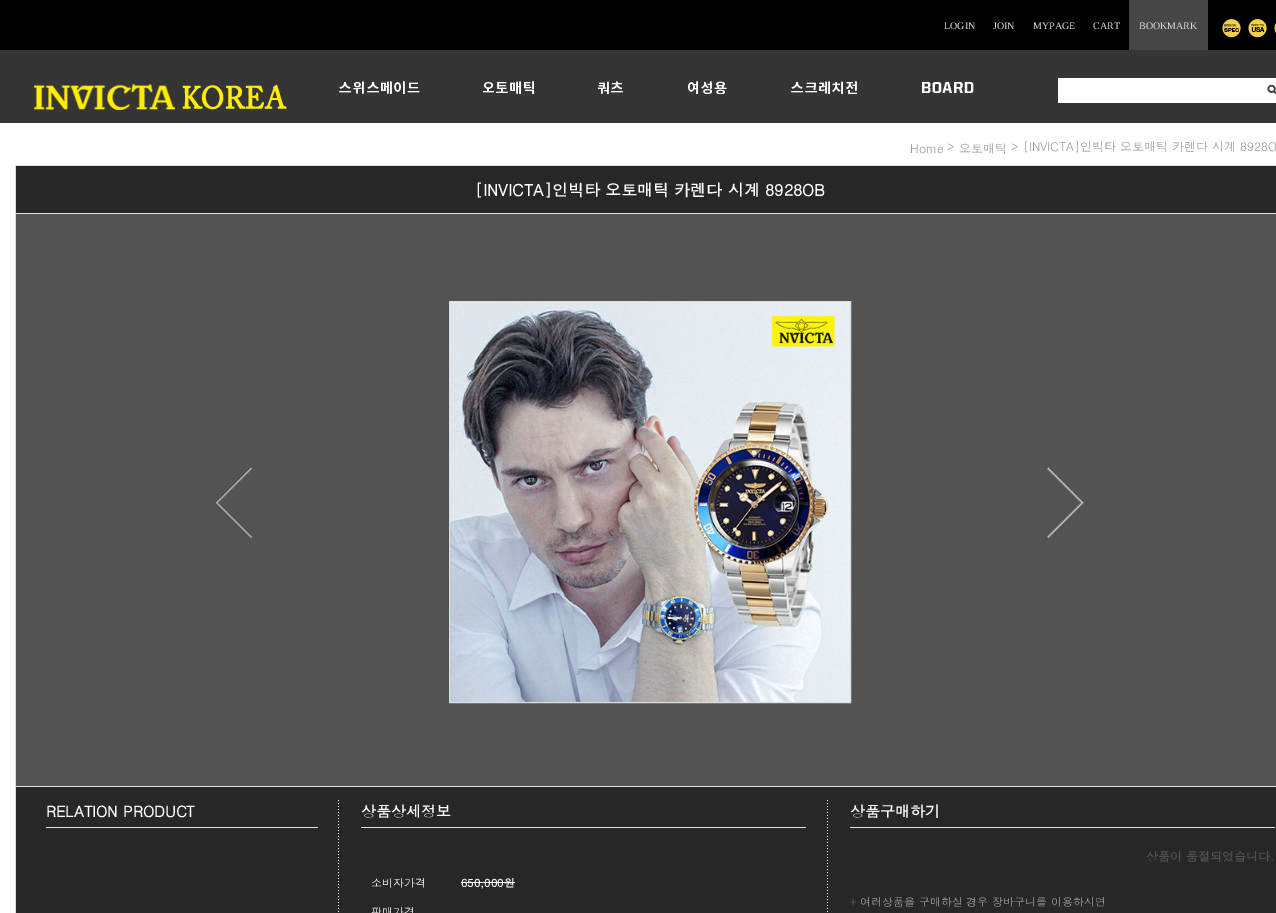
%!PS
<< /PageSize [1276 913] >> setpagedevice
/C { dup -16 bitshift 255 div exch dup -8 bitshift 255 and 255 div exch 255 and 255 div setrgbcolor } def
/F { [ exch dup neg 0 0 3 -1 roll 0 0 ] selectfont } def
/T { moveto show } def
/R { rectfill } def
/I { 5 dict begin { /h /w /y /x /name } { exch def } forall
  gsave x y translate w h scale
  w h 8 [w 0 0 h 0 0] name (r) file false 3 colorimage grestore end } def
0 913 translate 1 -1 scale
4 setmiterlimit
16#FFFFFF C
0 0 1276 913 R
(1.rgb) 0 0 1276 123 I
/LiberationSerif-Regular 10 F
16#DEDEDE C
(LOGIN) 944 29 T
(JOIN) 993 29 T
(MYPAGE) 1033 29 T
(CART) 1093 29 T
16#464646 C
1129 0 79 50 R
16#DEDEDE C
(BOOKMARK) 1139 29 T
(2.rgb) 1222 19 19 19 I
(3.rgb) 1248 19 19 19 I
(4.rgb) 1274 23 2 10 I
(5.rgb) 34 84 253 26 I
(6.rgb) 339 81 81 13 I
(7.rgb) 483 81 51 13 I
(8.rgb) 597 81 26 13 I
(9.rgb) 688 81 39 13 I
(10.rgb) 791 81 66 13 I
(11.rgb) 922 82 52 11 I
16#FFFFFF C
1058 78 200 25 R
(12.rgb) 1258 78 18 25 I
/Dotum-Regular 12 F
16#999999 C
(Home) 910 153 T
(>) 947 151 T
(오토매틱) 959 153 T
(> [INVICTA]인빅타 오토매틱 카렌다 시계 8928O) 1011 151 T
16#272727 C
16 166 1260 47 R
16#DEDEDE C
15 165 1261 1 R
15 165 1 48 R
/Dotum-Bold 16 F
16#FFFFFF C
([INVICTA]인빅타 오토매틱 카렌다 시계 8928OB) 475 196 T
16#DEDEDE C
15.5 213.5 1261 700 rectstroke
16#535353 C
16 214 1260 572 R
(13.rgb) 216 467 37 71 I
16#DEDEDE C
449.5 301.5 401 401 rectstroke
(14.rgb) 450 302 400 400 I
(15.rgb) 1047 467 37 71 I
16#272727 C
16 787 1260 126 R
16#DEDEDE C
16 786 1260 1 R
(16.rgb) 338 800 1 112 I
46 827 272 1 R
/Dotum-Bold 15 F
16#FFFFFF C
(RELATION PRODUCT) 46 817 T
(16.rgb) 827 800 1 112 I
16#DEDEDE C
361 827 445 1 R
16#FFFFFF C
(상품상세정보) 361 817 T
/Dotum-Regular 11 F
(소비자가격) 371 887 T
/Dotum-Bold 11 F
(650,000원) 461 887 T
461 882 54 1 R
/Dotum-Regular 11 F
(판매가격) 371 916 T
16#DEDEDE C
850 827 425 1 R
/Dotum-Bold 15 F
16#FFFFFF C
(상품구매하기) 850 817 T
/Dotum-Bold 12 F
16#525252 C
(상품이 품절되었습니다.) 1146 861 T
/Dotum-Regular 11 F
16#686868 C
(+) 850 906 T
16#A5A5A5 C
(여러상품을 구매하실 경우 장바구니를 이용하시면) 860 906 T
showpage
